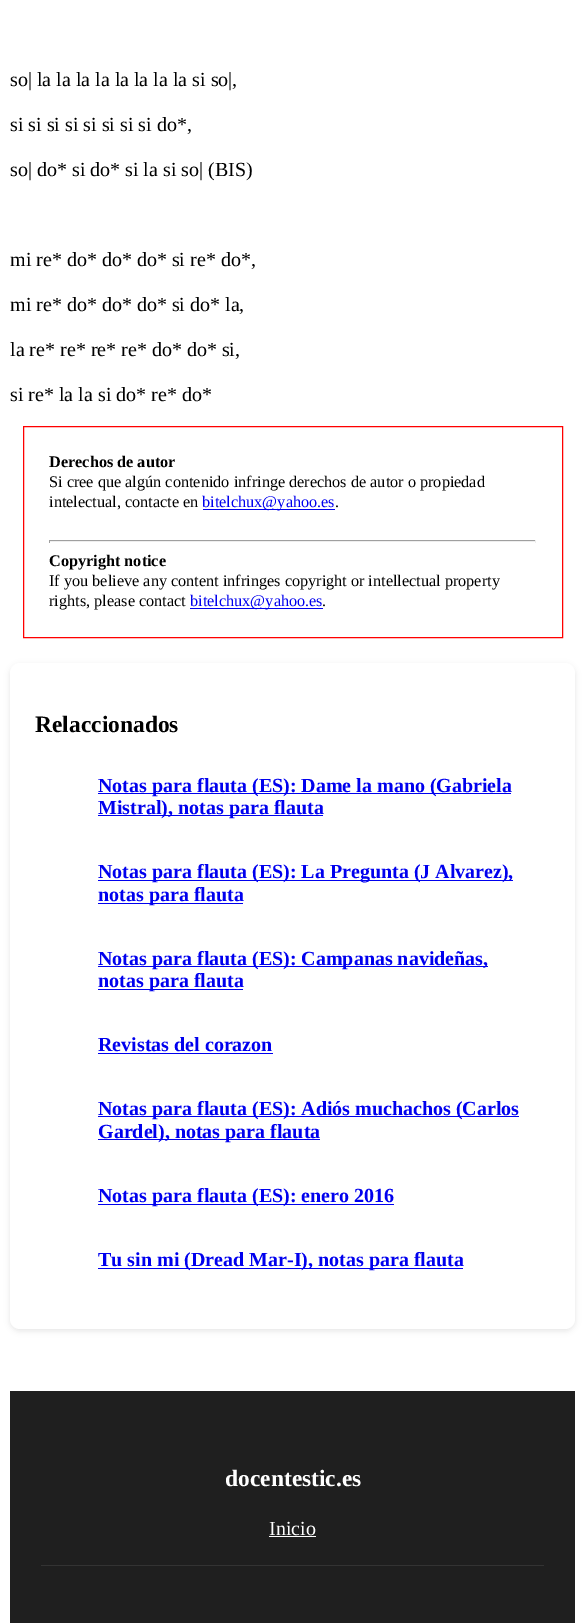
%!PS
<< /PageSize [585 1623] /PageUsesTransparency true >> setpagedevice
/f/fill load def
/C { dup -16 bitshift 255 div exch dup -8 bitshift 255 and 255 div exch 255 and 255 div setrgbcolor } def
/F { [ exch dup neg 0 0 3 -1 roll 0 0 ] selectfont } def
/T { moveto show } def
/R { rectfill } def
/A { dup .setfillconstantalpha .setstrokeconstantalpha } def
/Q { 5 dict begin { /r /h /w /y /x } { exch def } forall
  x r add y moveto x w add y 2 copy h add r arct x w add y h add x 1 index r arct
  x y h add x y r arct x y 2 copy exch w add exch r arct closepath end } def
/S { 12 dict begin { /a /b /q /h /w /y /x } { exch def } forall gsave /was 0 def
  9 -2 -9 { dup b mul 4 div /e exch def 1 sub .425 mul 2.718 exch exp 1 add a .99 .min exch div /now exch def
    1 1 now sub 1 was sub div sub A /was now def
    w h .min e 2 mul add 0 gt { x e sub y e sub w e 2 mul add h e 2 mul add
      q e add b .6 mul add w h .min 2 div e add .min 0 .max Q fill } if } for grestore end } def
0 .pushpdf14devicefilter
0 1623 translate 1 -1 scale
4 setmiterlimit
16#FFFFFF C
0 0 585 1623 R
/LiberationSerif-Regular 20 F
16#000000 C
(so| la la la la la la la la si so|,) 10 86 T
(si si si si si si si si do*,) 10 131 T
(so| do* si do* si la si so| \(BIS\)) 10 176 T
(mi re* do* do* do* si re* do*,) 10 266 T
(mi re* do* do* do* si do* la,) 10 311 T
(la re* re* re* re* do* do* si,) 10 356 T
(si re* la la si do* re* do*) 10 401 T
16#FF0000 C
23.5 426.5 539 211 rectstroke
/LiberationSerif-Bold 16.25 F
16#000000 C
(Derechos de autor) 49 467 T
/LiberationSerif-Regular 16.25 F
(Si cree que algún contenido infringe derechos de autor o propiedad) 49 487 T
(intelectual, contacte en) 49 507 T
16#0000EE C
203 509 132 1 R
(bitelchux@yahoo.es) 202 507 T
16#000000 C
(.) 335 507 T
16#9F9F9F C
49 540 487 1 R
16#EEEEEE C
535 540 1 3 R
49 541 487 1 R
16#9F9F9F C
49 540 1 3 R
/LiberationSerif-Bold 16.25 F
16#000000 C
(Copyright notice) 49 566 T
/LiberationSerif-Regular 16.25 F
(If you believe any content infringes copyright or intellectual property) 49 586 T
(rights, please contact) 49 606 T
16#0000EE C
190 608 133 1 R
(bitelchux@yahoo.es) 190 606 T
16#000000 C
(.) 322 606 T
10 665 565 666 10 3 .1 S
16#FFFFFF C
10 663 565 666 10 Q f
/LiberationSerif-Bold 23.5 F
16#000000 C
(Relaccionados) 35 732 T
16#0000EE C
98 793 413 1 R
/LiberationSerif-Bold 20 F
(Notas para flauta \(ES\): Dame la mano \(Gabriela) 98 792 T
98 815 225 1 R
(Mistral\), notas para flauta) 98 814 T
98 880 415 1 R
(Notas para flauta \(ES\): La Pregunta \(J Alvarez\),) 98 878 T
98 903 145 1 R
(notas para flauta) 98 901 T
98 966 390 1 R
(Notas para flauta \(ES\): Campanas navideñas,) 98 965 T
98 989 145 1 R
(notas para flauta) 98 987 T
(Revistas del corazon) 98 1051 T
98 1053 175 1 R
98 1116 421 1 R
(Notas para flauta \(ES\): Adiós muchachos \(Carlos) 98 1115 T
98 1139 222 1 R
(Gardel\), notas para flauta) 98 1138 T
98 1204 296 1 R
(Notas para flauta \(ES\): enero 2016) 98 1202 T
98 1268 365 1 R
(Tu sin mi \(Dread Mar-I\), notas para flauta) 98 1266 T
16#1F1F1F C
10 1391 565 232 R
/LiberationSerif-Bold 23.5 F
16#FFFFFF C
(docentestic.es) 225 1486 T
/LiberationSerif-Regular 20 F
(Inicio) 269 1535 T
269 1536 47 1 R
16#333333 C
41 1565 503 1 R
.poppdf14devicefilter showpage
